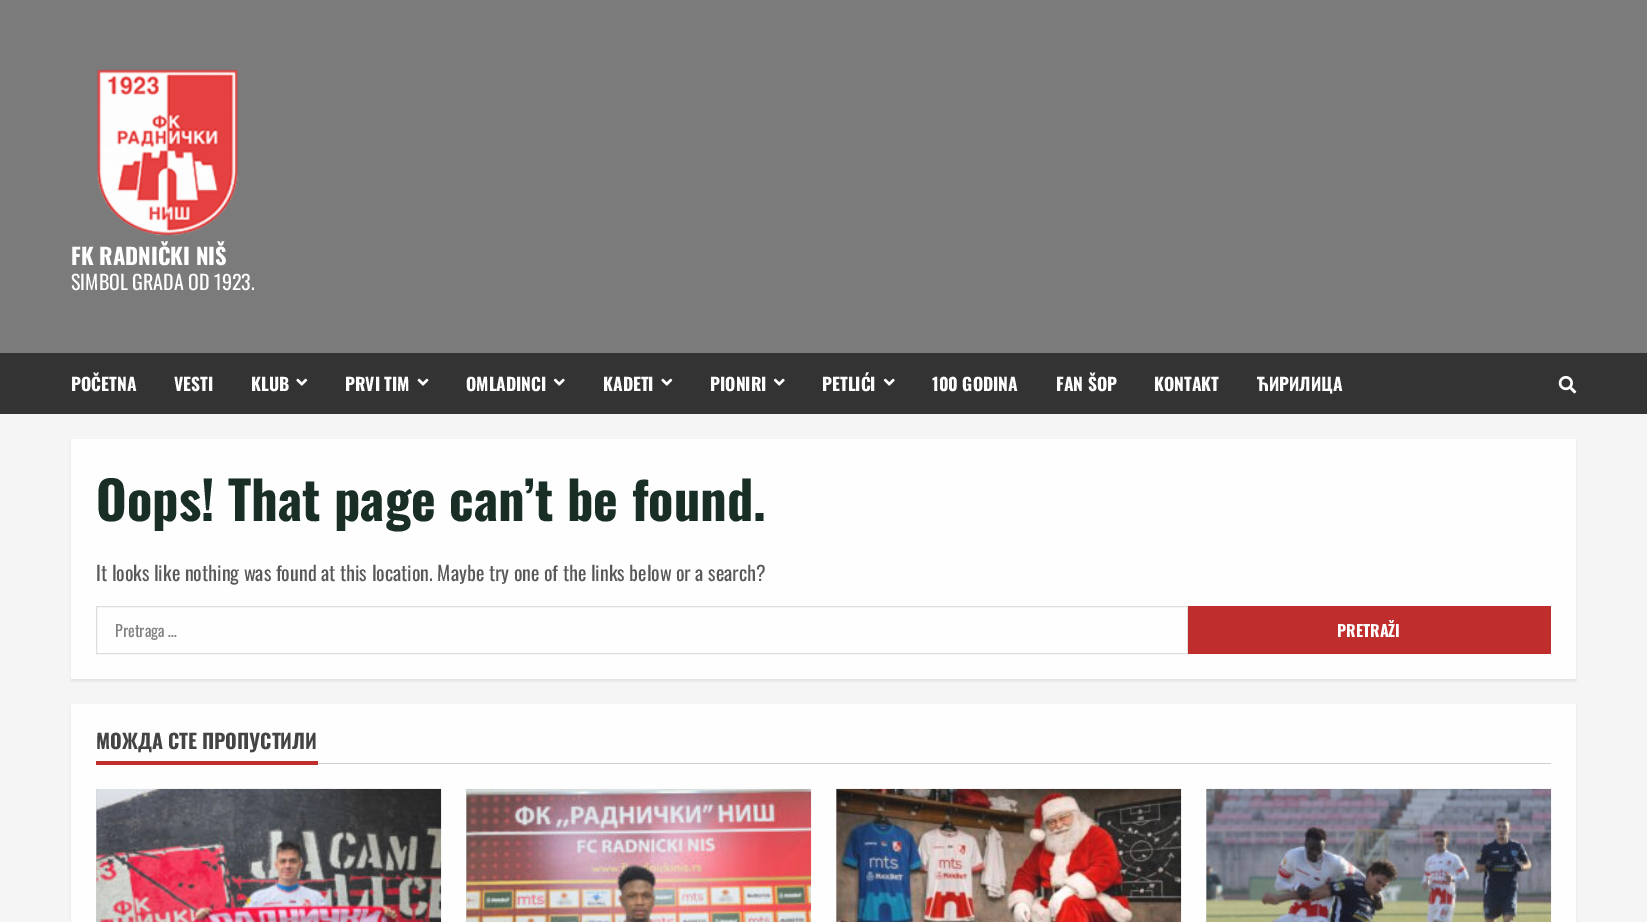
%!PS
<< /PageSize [1647 922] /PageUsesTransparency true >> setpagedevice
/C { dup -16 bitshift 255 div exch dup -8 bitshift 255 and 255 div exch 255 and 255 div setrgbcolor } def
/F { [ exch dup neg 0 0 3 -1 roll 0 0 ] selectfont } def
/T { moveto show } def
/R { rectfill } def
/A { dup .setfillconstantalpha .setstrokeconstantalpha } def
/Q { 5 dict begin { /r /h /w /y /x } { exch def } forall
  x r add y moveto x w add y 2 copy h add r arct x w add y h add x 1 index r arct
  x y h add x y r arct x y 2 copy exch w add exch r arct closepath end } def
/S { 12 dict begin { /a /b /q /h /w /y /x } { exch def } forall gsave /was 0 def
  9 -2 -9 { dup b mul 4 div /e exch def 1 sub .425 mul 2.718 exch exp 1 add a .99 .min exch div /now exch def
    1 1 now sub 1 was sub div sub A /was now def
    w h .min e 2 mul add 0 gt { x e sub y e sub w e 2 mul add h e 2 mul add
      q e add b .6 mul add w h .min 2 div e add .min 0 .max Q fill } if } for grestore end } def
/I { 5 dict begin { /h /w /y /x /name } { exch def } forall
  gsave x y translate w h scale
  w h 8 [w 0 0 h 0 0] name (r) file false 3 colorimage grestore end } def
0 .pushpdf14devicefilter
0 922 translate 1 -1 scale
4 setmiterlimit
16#F5F5F5 C
0 0 1647 922 R
16#7B7B7B C
0 0 1647 353 R
(1.rgb) 97 69 141 167 I
/Oswald-Bold 22.5 F
16#FEFEFE C
(FK RADNIČKI NIŠ) 71 265 T
/Oswald-Regular 20 F
(SIMBOL GRADA OD 1923.) 71 290 T
16#333333 C
0 353 1647 61 R
/Oswald-Bold 17.5 F
16#FEFEFE C
(POČETNA) 71 391 T
(VESTI) 174 391 T
(KLUB) 251 391 T
(2.rgb) 296 378 12 8 I
(PRVI TIM) 345 391 T
(3.rgb) 417 378 12 8 I
(OMLADINCI) 466 391 T
(4.rgb) 553 378 12 8 I
(KADETI) 603 391 T
(2.rgb) 661 378 12 8 I
(PIONIRI) 710 391 T
(4.rgb) 773 378 12 8 I
(PETLIĆI) 822 391 T
(4.rgb) 883 378 12 8 I
(100 GODINA) 932 391 T
(FAN ŠOP) 1056 391 T
(KONTAKT) 1154 391 T
(ЋИРИЛИЦА) 1257 391 T
(5.rgb) 1558 375 19 19 I
16#161616 C
71 441 1505 240 0 1 .08 S
16#FEFEFE C
71 439 1505 240 R
/Oswald-Bold 52.5 F
16#192F26 C
(Oops! That page can’t be found.) 96 521 T
/Oswald-Regular 20 F
16#595959 C
(It looks like nothing was found at this location. Maybe try one of the links below or a search?) 96 581 T
16#DEDEDE C
96.5 606.5 1091 47 rectstroke
/Oswald-Regular 16 F
16#818181 C
(Pretraga …) 115 637 T
16#C02D2D C
1188 606 363 48 R
/Oswald-Bold 16 F
16#FEFEFE C
(PRETRAŽI) 1337 637 T
16#161616 C
71 706 1505 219 0 1 .08 S
16#FEFEFE C
71 704 1505 218 R
16#D0D0D0 C
318 763 1233 1 R
/Oswald-Bold 20 F
16#444444 C
(МОЖДА СТЕ ПРОПУСТИЛИ) 96 749 T
16#C02D2D C
96 761 222 4 R
16#D0D0D0 C
96 789 1 133 R
(6.rgb) 96 788 346 134 I
466 789 1 133 R
(7.rgb) 466 788 346 134 I
836 789 1 133 R
(8.rgb) 836 788 346 134 I
1206 789 1 133 R
(9.rgb) 1206 788 346 134 I
.poppdf14devicefilter showpage
